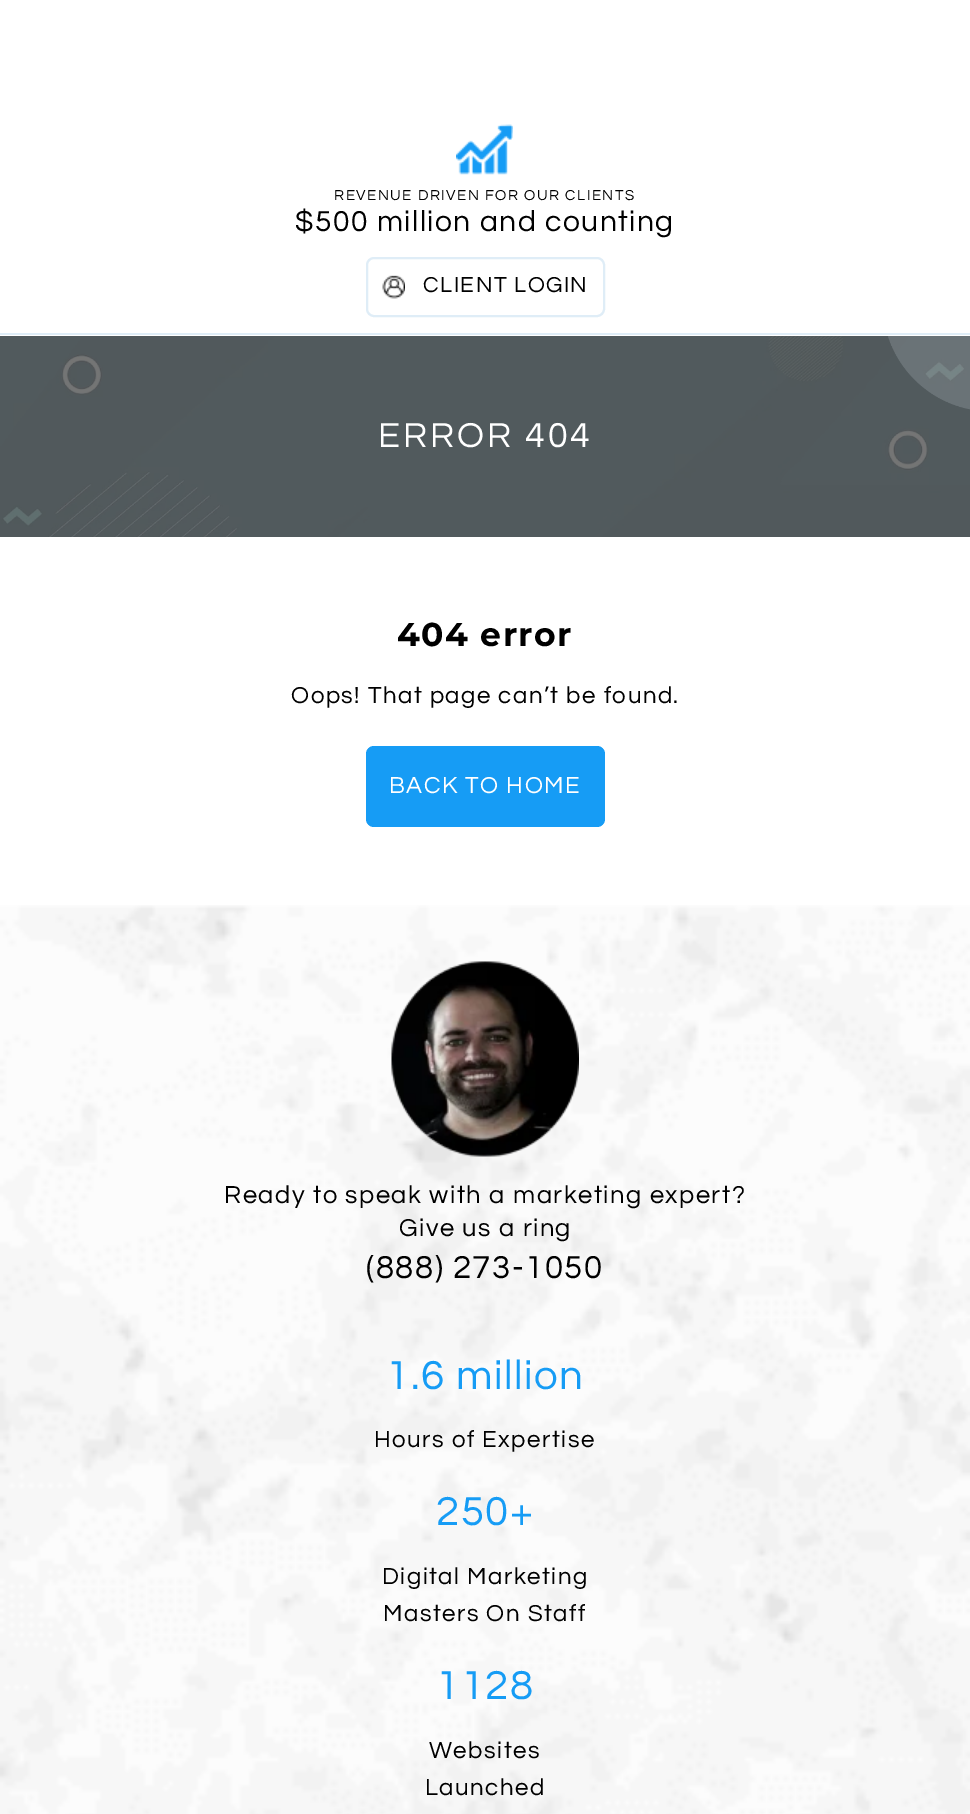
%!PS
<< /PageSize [970 1814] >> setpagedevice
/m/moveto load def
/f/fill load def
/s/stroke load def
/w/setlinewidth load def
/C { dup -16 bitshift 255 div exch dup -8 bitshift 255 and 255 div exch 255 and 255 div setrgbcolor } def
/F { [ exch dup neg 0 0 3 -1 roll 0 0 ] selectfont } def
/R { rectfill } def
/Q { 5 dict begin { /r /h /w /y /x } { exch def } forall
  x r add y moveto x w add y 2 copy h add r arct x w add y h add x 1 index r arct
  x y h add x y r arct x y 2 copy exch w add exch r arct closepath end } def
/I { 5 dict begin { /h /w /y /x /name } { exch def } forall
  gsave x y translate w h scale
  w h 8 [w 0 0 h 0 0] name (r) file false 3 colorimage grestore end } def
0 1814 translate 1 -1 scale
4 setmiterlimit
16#FFFFFF C
0 0 970 1814 R
16#DFEDF7 C
0 333 970 2 R
(1.rgb) 456 124 57 51 I
/Questrial-Regular 15 F
16#000000 C
334 200 m 1.5 0 (REVENUE DRIVEN FOR OUR CLIENTS) ashow
/Questrial-Regular 30 F
295 231 m 1.5 0 ($500 million and counting) ashow
16#DFEDF7 C
2 w
367 258 237 58 7 Q s
(2.rgb) 382 275 23 24 I
/Questrial-Regular 22.5 F
16#000000 C
423 292 m 1.5 0 (CLIENT LOGIN) ashow
(3.rgb) 0 336 970 201 I
/Questrial-Regular 36 F
16#FFFFFF C
378 447 m 3 0 (ERROR 404) ashow
/Montserrat-Bold 33 F
16#000000 C
397 646 m 1.5 0 (404 error) ashow
/Questrial-Regular 24 F
291 703 m 1.5 0 (Oops! That page can’t be found.) ashow
16#169CF5 C
366 746 239 81 8 Q f
16#FFFFFF C
389 793 m 1.5 0 (BACK TO HOME) ashow
(4.rgb) 0 905 970 909 I
(5.rgb) 391 961 188 196 I
/Questrial-Regular 25.5 F
16#000000 C
224 1203 m 1.5 0 (Ready to speak with a marketing expert?) ashow
399 1236 m 1.5 0 (Give us a ring) ashow
/Questrial-Regular 33 F
366 1278 m 1.5 0 (\(888\) 273-1050) ashow
/Questrial-Regular 42 F
16#169CF5 C
386 1389 m 1.5 0 (1.6 million) ashow
/Questrial-Regular 24 F
16#000000 C
374 1447 m 1.5 0 (Hours of Expertise) ashow
/Questrial-Regular 42 F
16#169CF5 C
436 1525 m 1.5 0 (250+) ashow
/Questrial-Regular 24 F
16#000000 C
382 1584 m 1.5 0 (Digital Marketing) ashow
383 1621 m 1.5 0 (Masters On Staff) ashow
/Questrial-Regular 42 F
16#169CF5 C
436 1699 m 1.5 0 (1128) ashow
/Questrial-Regular 24 F
16#000000 C
429 1758 m 1.5 0 (Websites) ashow
425 1795 m 1.5 0 (Launched) ashow
showpage
